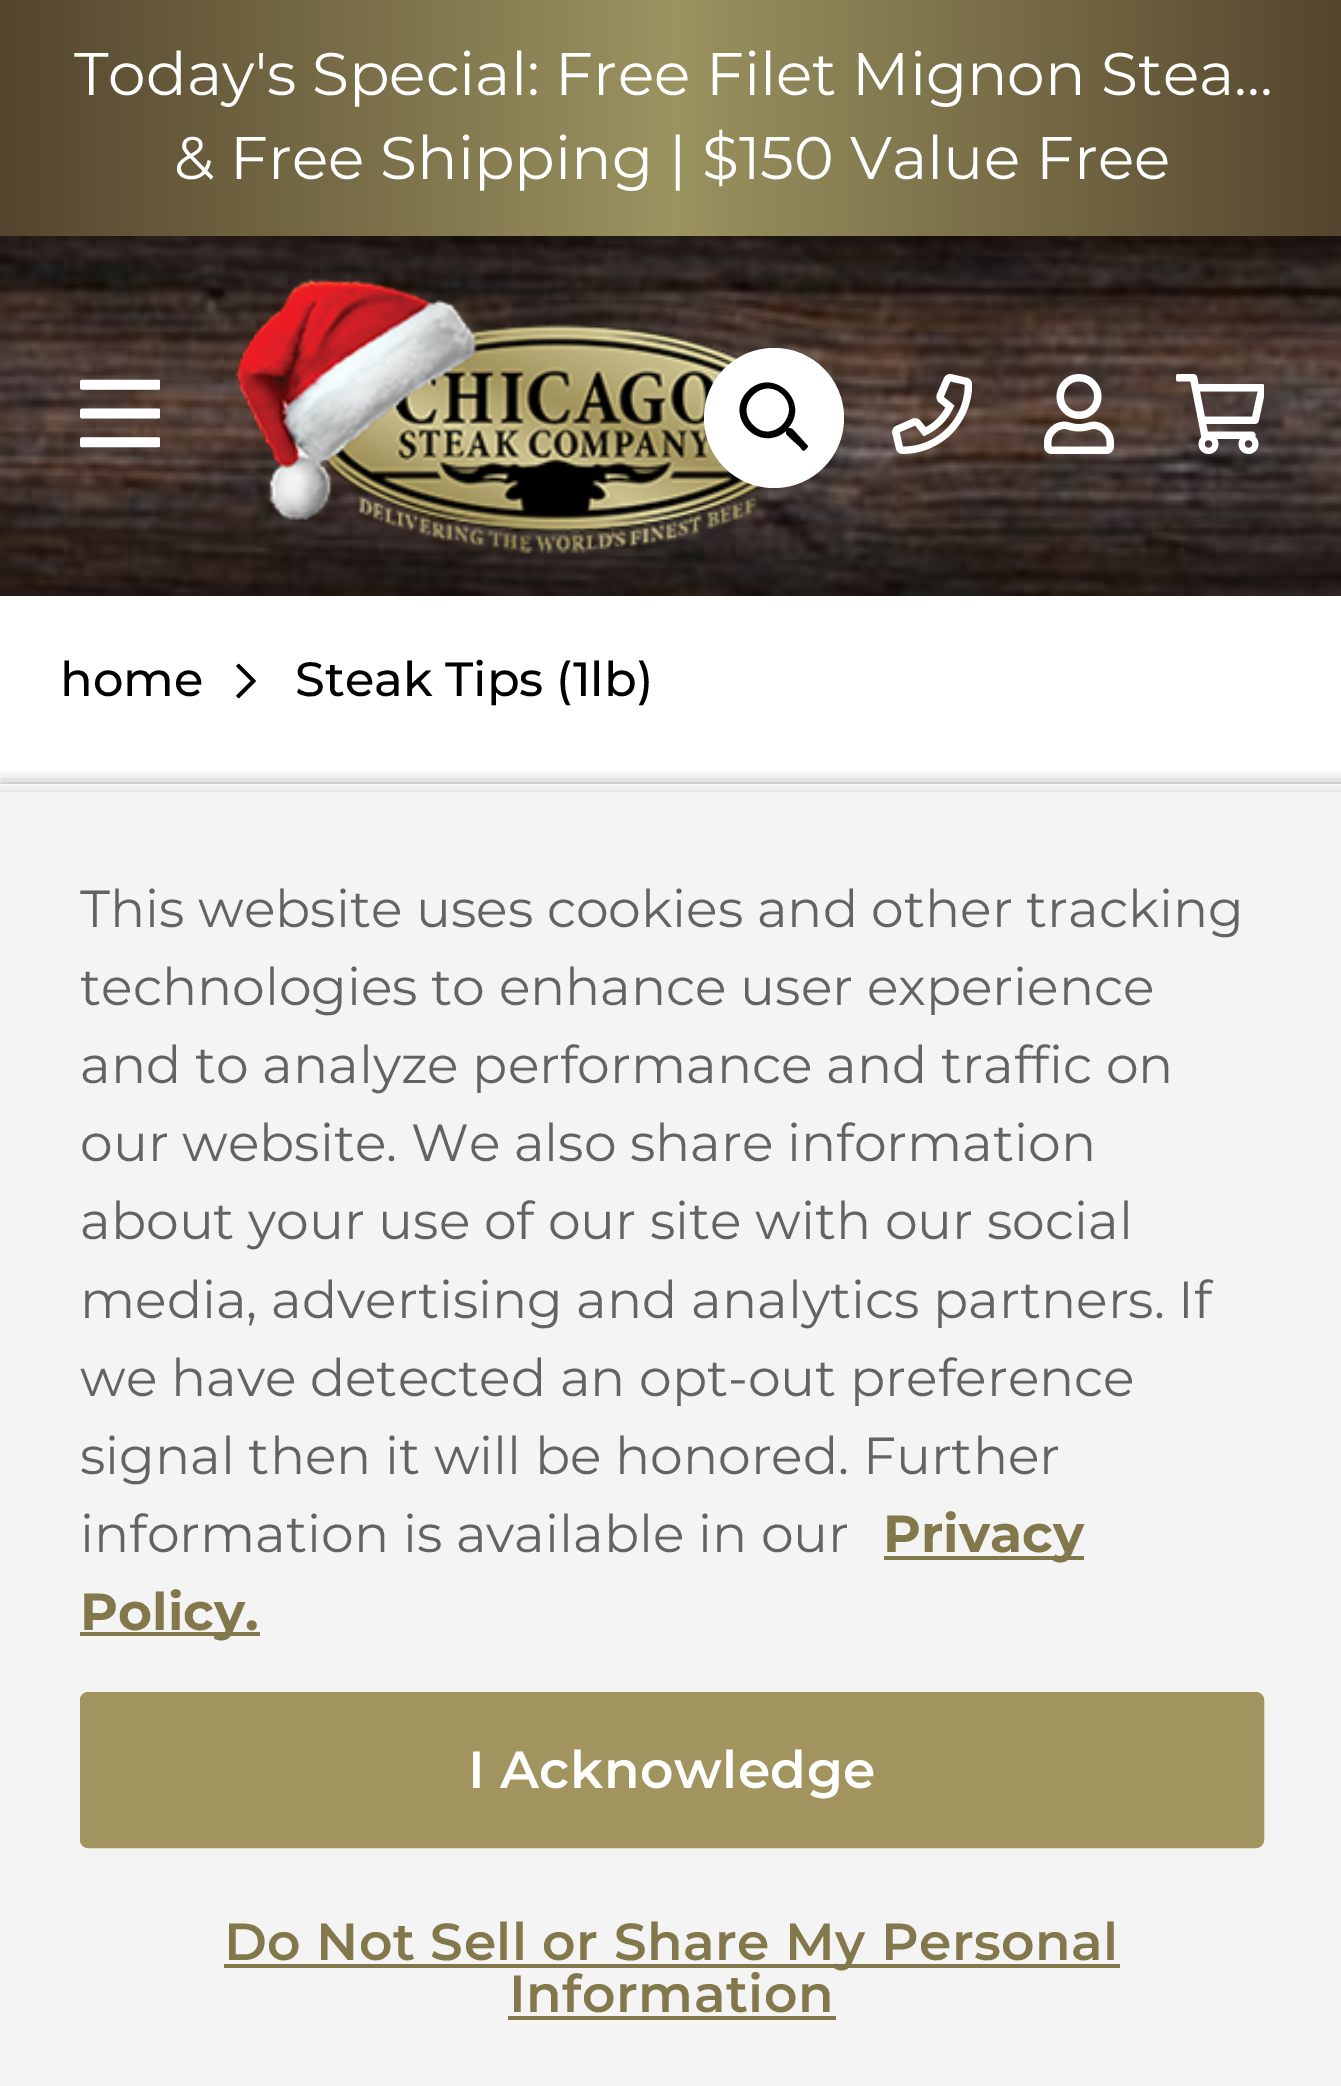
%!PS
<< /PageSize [1341 2086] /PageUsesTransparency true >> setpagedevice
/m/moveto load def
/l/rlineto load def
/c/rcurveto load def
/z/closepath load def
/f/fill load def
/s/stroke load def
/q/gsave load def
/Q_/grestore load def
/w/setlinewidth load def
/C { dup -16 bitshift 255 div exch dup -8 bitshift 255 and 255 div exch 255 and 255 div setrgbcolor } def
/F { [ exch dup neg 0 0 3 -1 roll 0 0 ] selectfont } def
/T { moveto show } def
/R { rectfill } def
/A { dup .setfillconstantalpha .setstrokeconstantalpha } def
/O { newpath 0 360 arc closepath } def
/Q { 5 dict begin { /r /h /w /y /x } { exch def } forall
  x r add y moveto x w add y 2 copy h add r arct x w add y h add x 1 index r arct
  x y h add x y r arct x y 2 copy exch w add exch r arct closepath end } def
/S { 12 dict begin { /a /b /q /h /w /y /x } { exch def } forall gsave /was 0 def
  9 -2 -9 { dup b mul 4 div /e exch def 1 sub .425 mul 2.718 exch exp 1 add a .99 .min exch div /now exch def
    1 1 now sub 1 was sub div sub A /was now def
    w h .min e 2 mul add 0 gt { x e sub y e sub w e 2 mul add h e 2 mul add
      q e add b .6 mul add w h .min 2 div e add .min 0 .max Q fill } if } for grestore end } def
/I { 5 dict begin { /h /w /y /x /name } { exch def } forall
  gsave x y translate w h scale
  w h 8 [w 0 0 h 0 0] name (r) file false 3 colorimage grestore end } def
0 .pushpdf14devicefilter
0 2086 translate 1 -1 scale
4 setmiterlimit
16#FFFFFF C
0 0 1341 2086 R
q 0 0 m 1341 0 l 0 236 l -1341 0 l z clip newpath
<< /ShadingType 2 /ColorSpace /DeviceRGB /Coords [0 118 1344 118] /Extend [true true] /Function << /FunctionType 3 /Domain [0 1] /Functions [<< /FunctionType 2 /Domain [0 1] /C0 [.329 .275 .18] /C1 [.608 .576 .376] /N 1 >> << /FunctionType 2 /Domain [0 1] /C0 [.608 .576 .376] /C1 [.329 .275 .18] /N 1 >>] /Bounds [.5] /Encode [0 1 0 1] >> >> shfill Q_
/Montserrat-Thin 60 F
(Today's Special: Free Filet Mignon Stea…) 74 95 T
(& Free Shipping | $150 Value Free) 174 179 T
(1.rgb) 0 236 1341 360 I
(2.rgb) 80 379 80 69 I
(3.rgb) 234 279 530 275 I
774 418 70 O f
16#000000 C
807 445 m 2 1 0 3 -1 4 c -3 3 -3 2 -6 -2 c -11 -10 l -3 -3 -3 -3 -3 -6 c -27 23 -63 -15 -38 -40 c 25 -25 63 11 40 37 c 5 0 5 2 9 6 c z 753 425 m 19 20 49 -10 30 -30 c -20 -20 -50 10 -30 30 c z f
(4.rgb) 892 373 80 81 I
(5.rgb) 1044 374 70 80 I
(6.rgb) 1176 374 88 80 I
/Montserrat-Medium 48 F
(home) 60 696 T
(7.rgb) 236 663 20 36 I
(Steak Tips \(1lb\)) 295 696 T
q
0 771 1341 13 rectclip
0 784 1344 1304 0 8 .35 S
Q_
q
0 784 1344 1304 rectclip
0 792 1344 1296 0 8 .2 S
Q_
16#F4F4F4 C
0 792 1341 1294 R
/Montserrat-Thin 52 F
16#636363 C
(This website uses cookies and other tracking) 80 927 T
(technologies to enhance user experience) 80 1005 T
(and to analyze performance and traffic on) 80 1083 T
(our website. We also share information) 80 1161 T
(about your use of our site with our social) 80 1239 T
(media, advertising and analytics partners. If) 80 1318 T
(we have detected an opt-out preference) 80 1396 T
(signal then it will be honored. Further) 80 1474 T
(information is available in our) 80 1552 T
16#83784B C
884 1556 200 4 R
/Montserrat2-Thin 52 F
(Privacy) 883 1552 T
80 1632 180 4 R
(Policy.) 80 1630 T
16#A1945E C
82 1694 1180 152 6 Q q f Q_
4 w
s
/Montserrat-SemiBold 52 F
16#FFFFFF C
468 1788 m .5 0 (I Acknowledge) ashow
16#83784B C
224 1964 896 4 R
224 1960 m .5 0 (Do Not Sell or Share My Personal) ashow
509 2012 m .5 0 (Information) ashow
508 2016 328 4 R
.poppdf14devicefilter showpage
